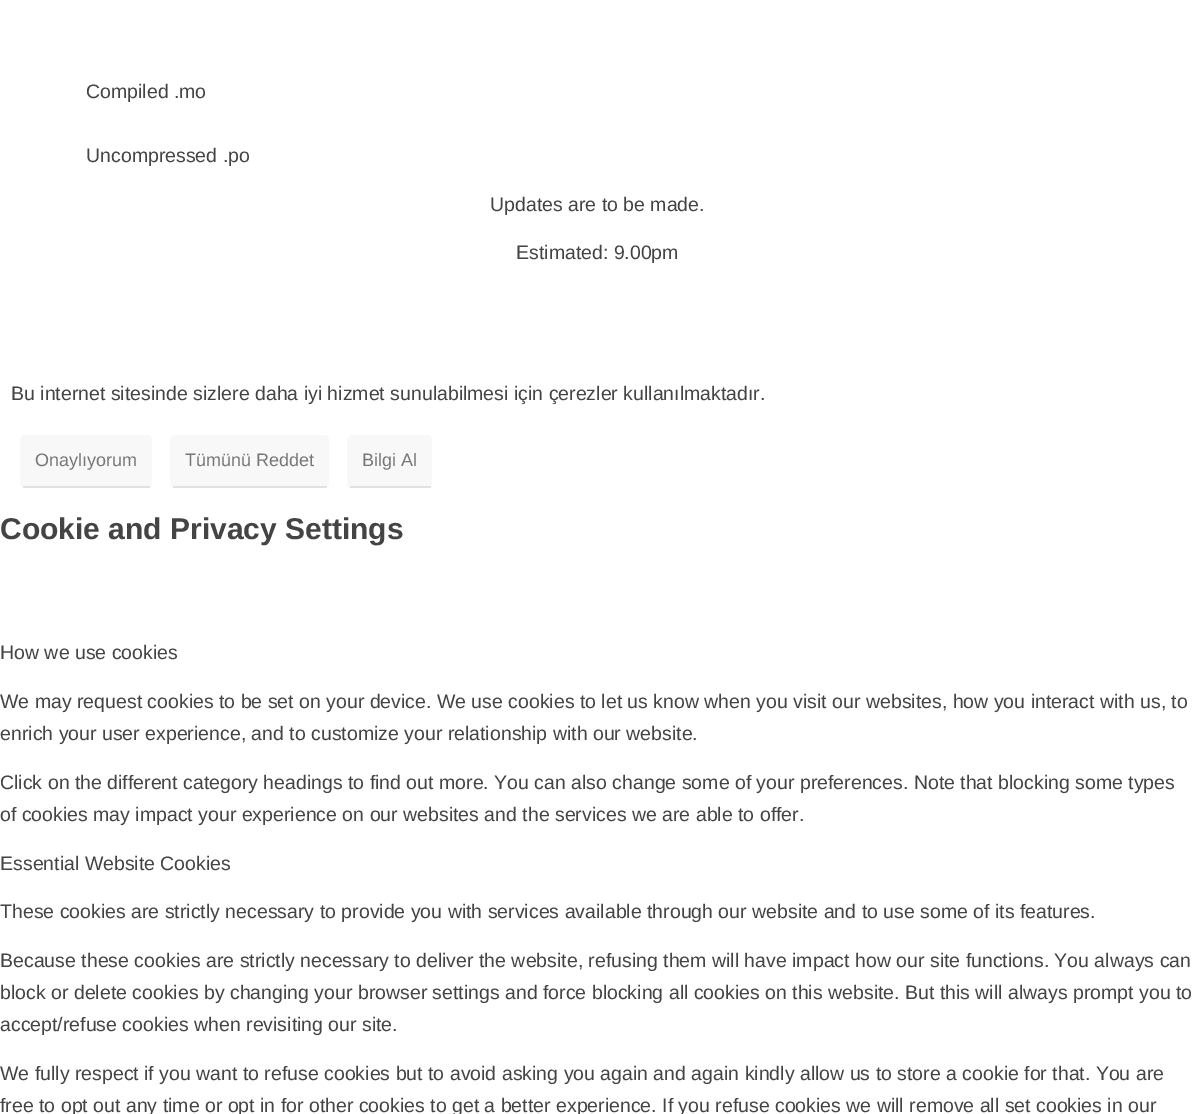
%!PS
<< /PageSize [1194 1114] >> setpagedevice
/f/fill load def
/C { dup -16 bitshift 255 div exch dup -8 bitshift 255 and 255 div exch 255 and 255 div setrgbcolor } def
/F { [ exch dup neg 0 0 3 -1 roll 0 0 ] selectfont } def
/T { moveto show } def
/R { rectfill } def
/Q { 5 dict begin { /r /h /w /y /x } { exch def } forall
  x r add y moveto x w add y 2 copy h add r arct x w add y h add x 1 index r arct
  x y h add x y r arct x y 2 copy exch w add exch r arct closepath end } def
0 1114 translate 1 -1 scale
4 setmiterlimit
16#FFFFFF C
0 0 1194 1114 R
/LiberationSans-Regular 19.5 F
16#444444 C
(Compiled .mo) 86 98 T
(Uncompressed .po) 86 162 T
(Updates are to be made.) 490 211 T
(Estimated: 9.00pm) 516 259 T
(Bu internet sitesinde sizlere daha iyi hizmet sunulabilmesi için çerezler kullanılmaktadır.) 11 400 T
16#F8F8F8 C
20 435 132 53 5 Q f
16#E1E1E1 C
23 486 127 2 R
/LiberationSans-Regular 18 F
16#777777 C
(Onaylıyorum) 35 466 T
16#F8F8F8 C
170 435 159 53 5 Q f
16#E1E1E1 C
173 486 154 2 R
16#777777 C
(Tümünü Reddet) 185 466 T
16#F8F8F8 C
347 435 85 53 5 Q f
16#E1E1E1 C
350 486 81 2 R
16#777777 C
(Bilgi Al) 362 466 T
/LiberationSans-Bold 30 F
16#444444 C
(Cookie and Privacy Settings) 0 539 T
/LiberationSans-Regular 19.5 F
(How we use cookies) 0 659 T
(We may request cookies to be set on your device. We use cookies to let us know when you visit our websites, how you interact with us, to) 0 708 T
(enrich your user experience, and to customize your relationship with our website.) 0 740 T
(Click on the different category headings to find out more. You can also change some of your preferences. Note that blocking some types) 0 789 T
(of cookies may impact your experience on our websites and the services we are able to offer.) 0 821 T
(Essential Website Cookies) 0 870 T
(These cookies are strictly necessary to provide you with services available through our website and to use some of its features.) 0 918 T
(Because these cookies are strictly necessary to deliver the website, refusing them will have impact how our site functions. You always can) 0 967 T
(block or delete cookies by changing your browser settings and force blocking all cookies on this website. But this will always prompt you to) 0 999 T
(accept/refuse cookies when revisiting our site.) 0 1031 T
(We fully respect if you want to refuse cookies but to avoid asking you again and again kindly allow us to store a cookie for that. You are) 0 1080 T
(free to opt out any time or opt in for other cookies to get a better experience. If you refuse cookies we will remove all set cookies in our) 0 1112 T
showpage
